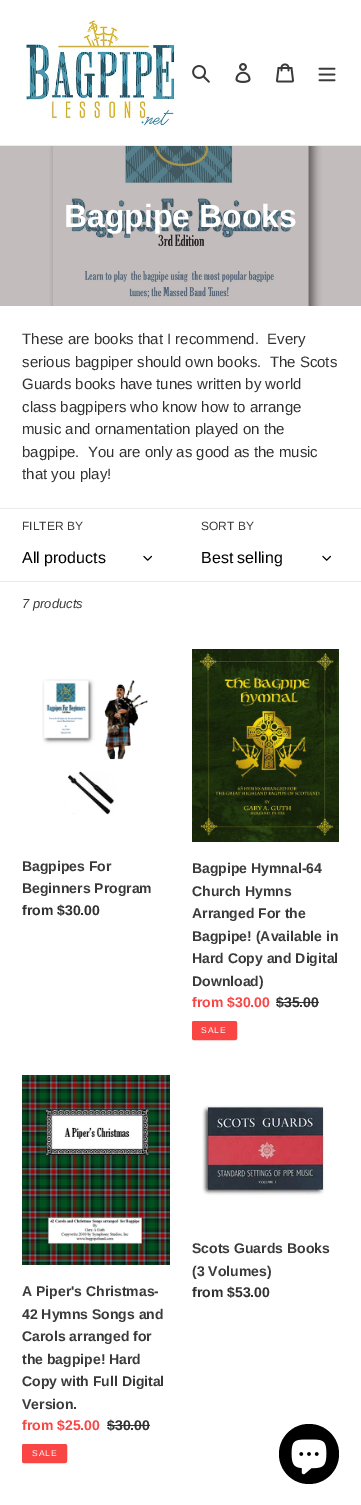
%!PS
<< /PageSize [361 1505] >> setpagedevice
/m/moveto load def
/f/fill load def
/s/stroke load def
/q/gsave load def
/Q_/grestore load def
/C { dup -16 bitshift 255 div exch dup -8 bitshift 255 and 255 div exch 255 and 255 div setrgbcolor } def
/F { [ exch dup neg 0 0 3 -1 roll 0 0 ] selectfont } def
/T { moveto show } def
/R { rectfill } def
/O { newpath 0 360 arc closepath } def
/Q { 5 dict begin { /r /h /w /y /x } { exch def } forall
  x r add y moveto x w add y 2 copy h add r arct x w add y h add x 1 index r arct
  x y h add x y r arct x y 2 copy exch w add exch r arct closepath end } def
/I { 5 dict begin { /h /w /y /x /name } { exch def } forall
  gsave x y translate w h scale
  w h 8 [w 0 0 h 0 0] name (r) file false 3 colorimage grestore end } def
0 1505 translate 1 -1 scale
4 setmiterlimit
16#FFFFFF C
0 0 361 1505 R
16#C3BCBC C
0 146 361 160 R
16#EBEBEB C
0 145 361 1 R
(1.rgb) 26 20 149 106 I
(2.rgb) 192 65 18 18 I
(3.rgb) 235 63 16 20 I
(4.rgb) 276 63 18 20 I
(5.rgb) 318 67 18 15 I
(6.rgb) 49 146 273 160 I
/LiberationSans-Bold 32 F
16#FFFFFF C
(Bagpipe Books) 64 227 T
/LiberationSans-Regular 15 F
16#333232 C
(These are books that I recommend.  Every) 22 344 T
(serious bagpiper should own books.  The Scots) 22 367 T
(Guards books have tunes written by world) 22 389 T
(class bagpipers who know how to arrange) 22 412 T
(music and ornamentation played on the) 22 434 T
(bagpipe.  You are only as good as the music) 22 457 T
(that you play!) 22 479 T
16#EBEBEB C
0 508 361 1 R
/LiberationSans-Regular 12 F
16#3A3A3A C
(FILTER BY) 22 530 T
/LiberationSans-Regular 16 F
16#000000 C
(All products) 22 563 T
(7.rgb) 143 555 9 6 I
/LiberationSans-Regular 12 F
16#3A3A3A C
(SORT BY) 201 530 T
/LiberationSans-Regular 16 F
16#000000 C
(Best selling) 201 563 T
(7.rgb) 322 555 9 6 I
16#EBEBEB C
0 581 361 1 R
/LiberationSans-Italic 13 F
16#3A3A3A C
(7 products) 22 608 T
(8.rgb) 42 679 106 136 I
/LiberationSans-Bold 14 F
(Bagpipes For) 22 871 T
(Beginners Program) 22 893 T
16#333232 C
(from $30.00) 22 915 T
(9.rgb) 192 649 147 193 I
16#3A3A3A C
(Bagpipe Hymnal-64) 192 873 T
(Church Hymns) 192 896 T
(Arranged For the) 192 918 T
(Bagpipe! \(Available in) 192 941 T
(Hard Copy and Digital) 192 963 T
(Download\)) 192 986 T
16#FA4545 C
(from $30.00) 192 1007 T
16#333232 C
($35.00) 276 1007 T
276 1002 43 1 R
16#FA4545 C
192.5 1021.5 44 18 1.5 Q q f Q_
s
/LiberationSans-Regular 8.5 F
16#FFFFFF C
201 1033 m 1 0 (SALE) ashow
(10.rgb) 202 1105 123 92 I
/LiberationSans-Bold 14 F
16#3A3A3A C
(Scots Guards Books) 192 1253 T
(\(3 Volumes\)) 192 1276 T
16#333232 C
(from $53.00) 192 1297 T
(11.rgb) 22 1075 148 190 I
16#3A3A3A C
(A Piper's Christmas-) 22 1296 T
(42 Hymns Songs and) 22 1319 T
(Carols arranged for) 22 1341 T
(the bagpipe! Hard) 22 1364 T
(Copy with Full Digital) 22 1386 T
(Version.) 22 1409 T
16#FA4545 C
(from $25.00) 22 1430 T
16#333232 C
($30.00) 107 1430 T
107 1425 43 1 R
16#FA4545 C
22.5 1444.5 44 18 1.5 Q q f Q_
s
/LiberationSans-Regular 8.5 F
16#FFFFFF C
32 1456 m 1 0 (SALE) ashow
16#000000 C
309 1454 30 O f
(12.rgb) 291 1439 36 36 I
showpage
